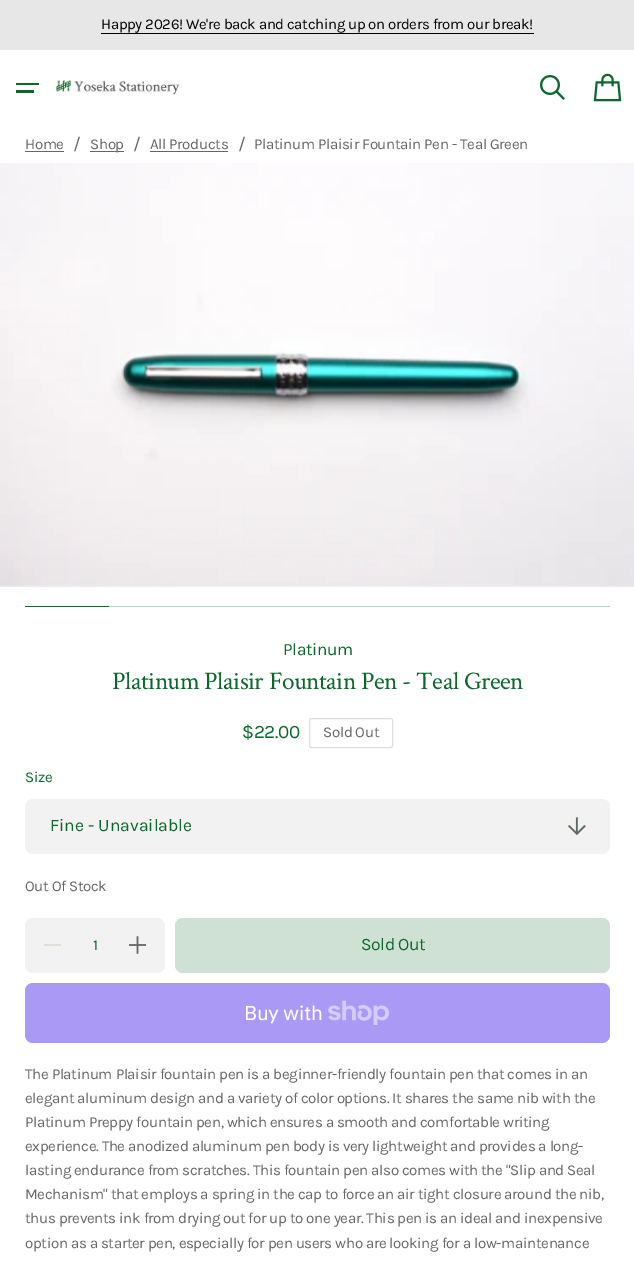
%!PS
<< /PageSize [634 1264] >> setpagedevice
/m/moveto load def
/l/rlineto load def
/z/closepath load def
/f/fill load def
/s/stroke load def
/C { dup -16 bitshift 255 div exch dup -8 bitshift 255 and 255 div exch 255 and 255 div setrgbcolor } def
/F { [ exch dup neg 0 0 3 -1 roll 0 0 ] selectfont } def
/T { moveto show } def
/R { rectfill } def
/Q { 5 dict begin { /r /h /w /y /x } { exch def } forall
  x r add y moveto x w add y 2 copy h add r arct x w add y h add x 1 index r arct
  x y h add x y r arct x y 2 copy exch w add exch r arct closepath end } def
/I { 5 dict begin { /h /w /y /x /name } { exch def } forall
  gsave x y translate w h scale
  w h 8 [w 0 0 h 0 0] name (r) file false 3 colorimage grestore end } def
0 1264 translate 1 -1 scale
4 setmiterlimit
16#FFFFFF C
0 0 634 1264 R
16#E7E7E7 C
0 0 634 50 R
/Karla-Regular 15 F
16#000000 C
101 29 m -.35 0 (Happy 2026! We're back and catching up on orders from our break!) ashow
101 33 433 1 R
16#09692A C
16 83 23 2 R
16 90 18 3 R
(1.rgb) 56 80 124 15 I
(2.rgb) 540 75 25 25 I
(3.rgb) 593 73 29 29 I
/Karla-Regular 15.1 F
16#666666 C
25 149 m -.35 0 (Home) ashow
25 151 39 1 R
/Karla-Regular 18 F
(/) 73 150 T
90 151 34 1 R
/Karla-Regular 15.1 F
90 149 m -.35 0 (Shop) ashow
/Karla-Regular 18 F
(/) 133 150 T
/Karla-Regular 15.1 F
150 149 m -.35 0 (All Products) ashow
150 151 78 1 R
/Karla-Regular 18 F
(/) 238 150 T
/Karla-Regular 15.1 F
254 149 m -.35 0 (Platinum Plaisir Fountain Pen - Teal Green) ashow
(4.rgb) 0 163 634 424 I
16#09692A C
25 606 84 1 R
16#B5D2BF C
109 606 501 1 R
/Karla-Regular 17.25 F
16#09692A C
283 655 m -.35 0 (Platinum) ashow
/CrimsonText-Regular 25.4 F
112 689 m -.5 0 (Platinum Plaisir Fountain Pen - Teal Green) ashow
/Karla-Regular 19 F
242 738 m -.35 0 ($22.00) ashow
16#DEDEDE C
309.5 718.5 83 29 2 Q s
/Karla-Regular 15.1 F
16#666666 C
323 737 m -.35 0 (Sold Out) ashow
16#09692A C
25 782 m -.35 0 (Size) ashow
16#F2F2F2 C
25 799 585 55 8 Q f
/Karla-Regular 17.5 F
16#09692A C
(Fine - Unavailable) 50 831 T
(5.rgb) 568 817 18 18 I
/Karla-Regular 15 F
16#666666 C
25 891 m -.35 0 (Out Of Stock) ashow
16#F2F2F2 C
25 918 140 55 8 Q f
16#D6E2DA C
51.5 946 m -7.5 0 l 0 -2 l 17 0 l 0 2 l z f
16#09692A C
(1) 93 950 T
(6.rgb) 129 936 17 18 I
16#CEE1D4 C
175 918 435 55 8 Q f
/Karla-Regular 17.5 F
16#09692A C
361 950 m -.5 0 (Sold Out) ashow
16#AA99F5 C
25 983 585 60 8 Q f
/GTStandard-Regular 20 F
16#FFFFFF C
244 1020 m -.35 0 (Buy with) ashow
(7.rgb) 328 1000 61 25 I
/Karla-Regular 15.1 F
16#666666 C
25 1079 m -.35 0 (The Platinum Plaisir fountain pen is a beginner-friendly fountain pen that comes in an) ashow
25 1103 m -.35 0 (elegant aluminum design and a variety of color options. It shares the same nib with the) ashow
25 1127 m -.35 0 (Platinum Preppy fountain pen, which ensures a smooth and comfortable writing) ashow
25 1151 m -.35 0 (experience. The anodized aluminum pen body is very lightweight and provides a long-) ashow
25 1175 m -.35 0 (lasting endurance from scratches. This fountain pen also comes with the "Slip and Seal) ashow
25 1199 m -.35 0 (Mechanism" that employs a spring in the cap to force an air tight closure around the nib,) ashow
25 1223 m -.35 0 (thus prevents ink from drying out for up to one year. This pen is an ideal and inexpensive) ashow
25 1248 m -.35 0 (option as a starter pen, especially for pen users who are looking for a low-maintenance) ashow
showpage
